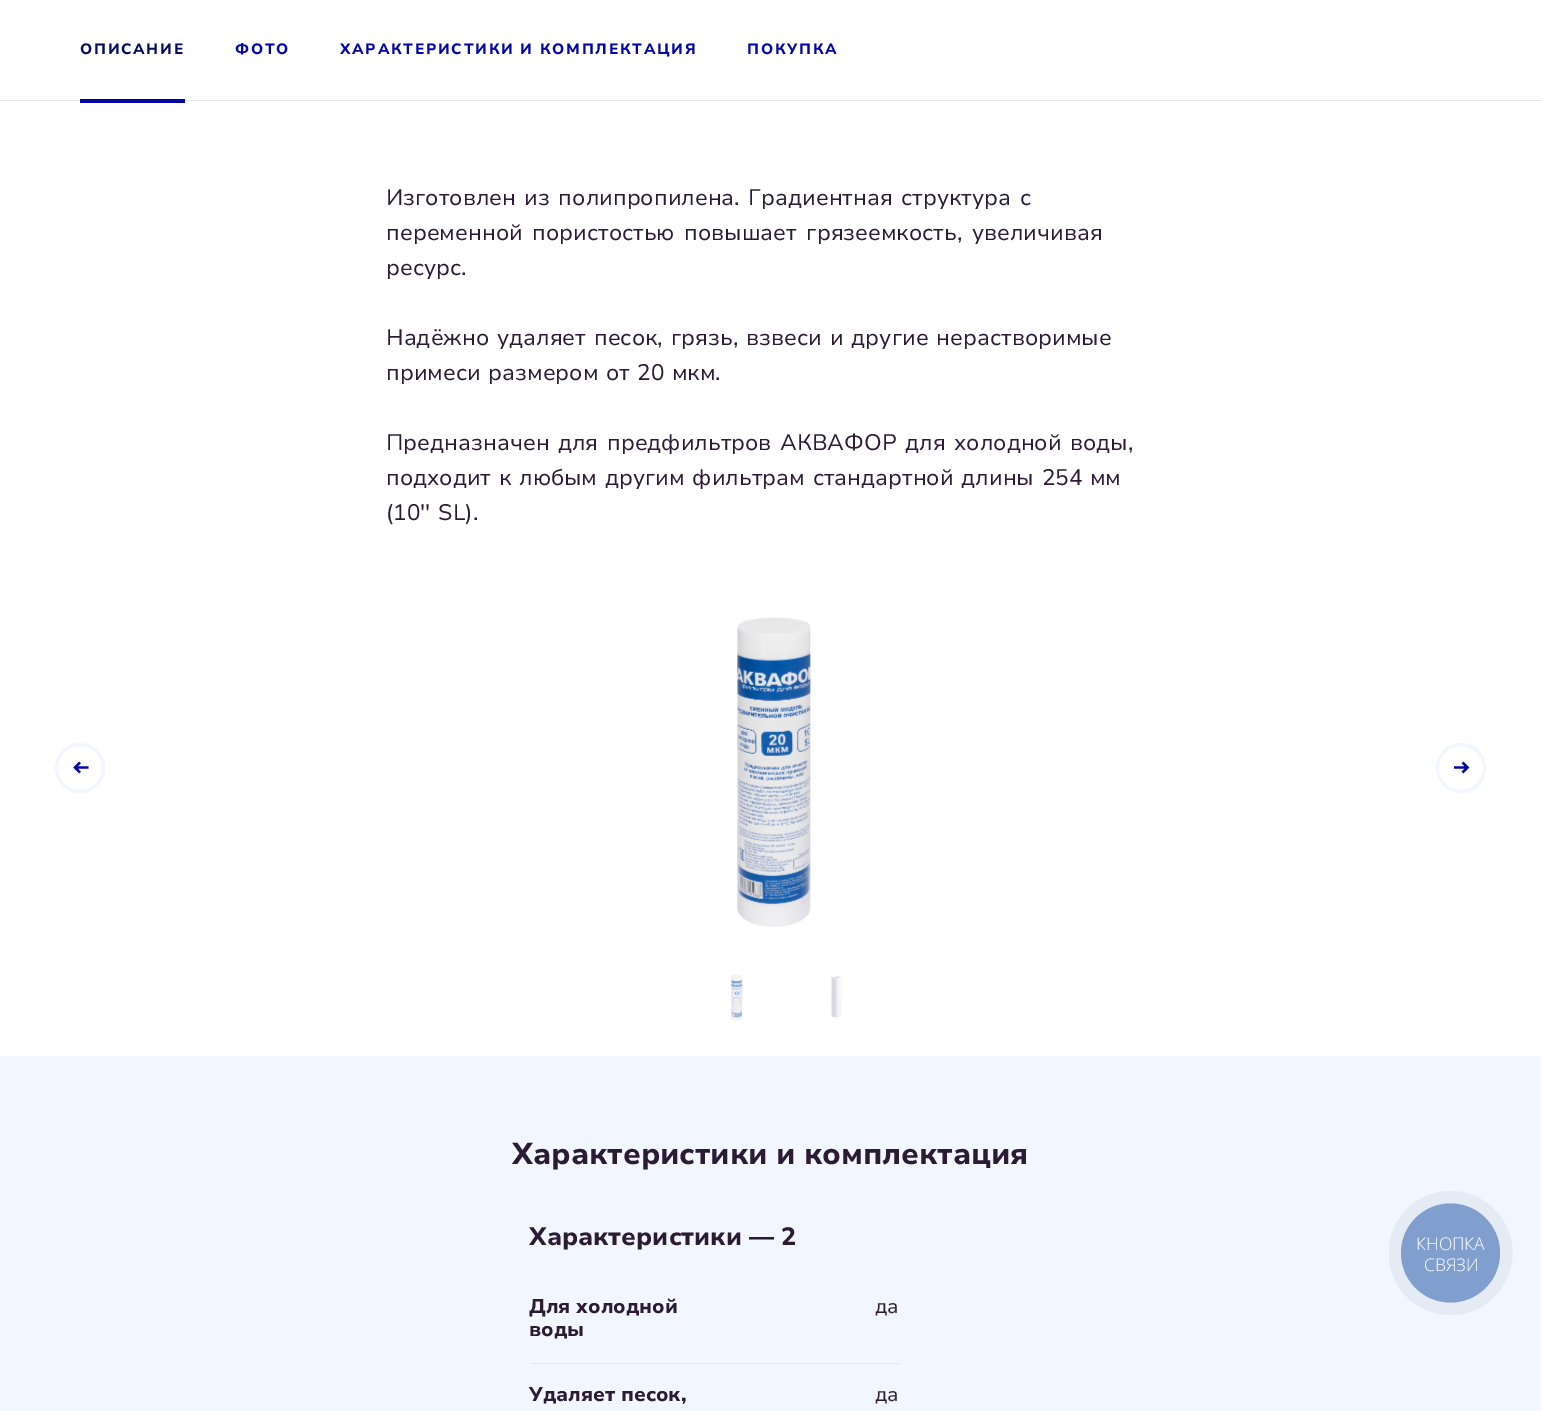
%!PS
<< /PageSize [1541 1411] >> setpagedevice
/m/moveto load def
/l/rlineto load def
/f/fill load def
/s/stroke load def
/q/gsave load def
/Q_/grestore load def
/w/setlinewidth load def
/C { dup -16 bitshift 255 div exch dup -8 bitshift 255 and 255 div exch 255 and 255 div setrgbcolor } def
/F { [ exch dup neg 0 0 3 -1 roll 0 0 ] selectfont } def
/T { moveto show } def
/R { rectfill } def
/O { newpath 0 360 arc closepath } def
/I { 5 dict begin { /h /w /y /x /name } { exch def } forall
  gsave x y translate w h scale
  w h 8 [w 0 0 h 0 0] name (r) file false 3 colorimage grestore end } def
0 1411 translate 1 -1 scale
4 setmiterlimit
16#FFFFFF C
0 0 1541 1411 R
16#E4E7EB C
0 100 1541 1 R
/NunitoSans-ExtraBold 15 F
16#050C59 C
80 54 m 1.7 0 (ОПИСАНИЕ) ashow
16#0206A4 C
80 99 105 4 R
235 54 m 1.7 0 (ФОТО) ashow
340 54 m 1.7 0 (ХАРАКТЕРИСТИКИ И КОМПЛЕКТАЦИЯ) ashow
747 54 m 1.7 0 (ПОКУПКА) ashow
/NunitoSans-Regular 22.5 F
16#2B1B35 C
386 205 m 2.5 0 32 (Изготовлен из полипропилена. Градиентная структура с) widthshow
386 240 m 3.5 0 32 (переменной пористостью повышает грязеемкость, увеличивая) widthshow
(ресурс.) 386 275 T
386 345 m 2 0 32 (Надёжно удаляет песок, грязь, взвеси и другие нерастворимые) widthshow
386 380 m 1.5 0 32 (примеси размером от 20 мкм.) widthshow
386 450 m 2.5 0 32 (Предназначен для предфильтров АКВАФОР для холодной воды,) widthshow
386 485 m 1.75 0 32 (подходит к любым другим фильтрам стандартной длины 254 мм) widthshow
386 520 m 1.75 0 32 (\(10'' SL\).) widthshow
(1.rgb) 737 617 75 310 I
16#F1F6FF C
3 w
80 768 23.5 O s
16#0206A4 C
2.2 w
76 767.5 m 12.5 0 l 80 762.5 m -5 5 l 5 5 l s
16#F1F6FF C
3 w
1461 768 23.5 O s
16#0206A4 C
2.2 w
1466.5 767.5 m -12.5 0 l 1462.5 772.5 m 5 -5 l -5 -5 l s
(2.rgb) 731 975 12 46 I
(3.rgb) 831 976 11 42 I
16#F1F6FF C
0 1056 1541 355 R
/NunitoSans-ExtraBold 30 F
16#2B1B35 C
(Характеристики и комплектация) 512 1164 T
/NunitoSans-ExtraBold 25 F
(Характеристики — 2) 529 1245 T
16#E4E7EB C
530 1363 370 1 R
/NunitoSans-ExtraBold 20 F
16#2B1B35 C
(Для холодной) 529 1313 T
(воды) 529 1336 T
/NunitoSans-Regular 20 F
(да) 875 1313 T
/NunitoSans-ExtraBold 20 F
(Удаляет песок,) 529 1401 T
/NunitoSans-Regular 20 F
(да) 875 1401 T
q
1389 1191 124 124 rectclip
16#E5EBF5 C
1450.5 1253 62 O f
Q_
16#809FCF C
1450.5 1253 49.5 O f
/OpenSans-Light 17.5 F
16#FFFFFF C
(КНОПКА) 1416 1250 T
(СВЯЗИ) 1424 1271 T
showpage
